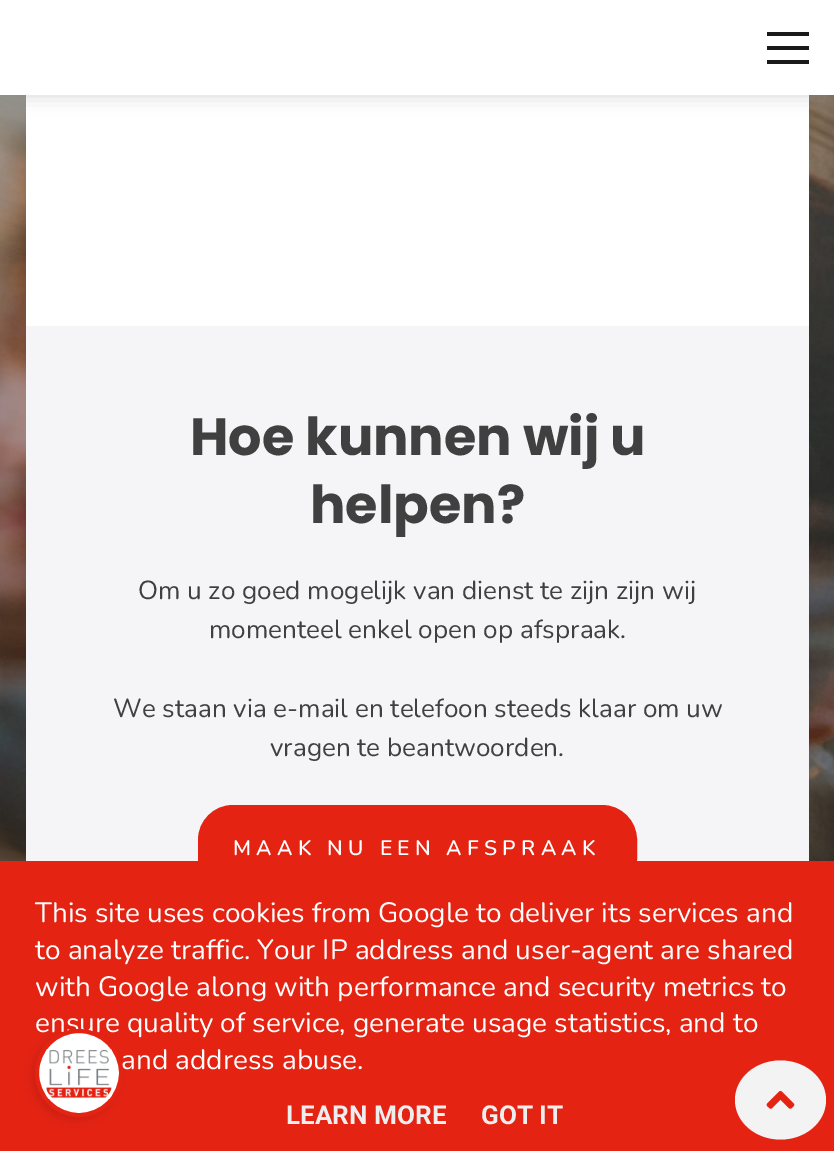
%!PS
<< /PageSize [834 1151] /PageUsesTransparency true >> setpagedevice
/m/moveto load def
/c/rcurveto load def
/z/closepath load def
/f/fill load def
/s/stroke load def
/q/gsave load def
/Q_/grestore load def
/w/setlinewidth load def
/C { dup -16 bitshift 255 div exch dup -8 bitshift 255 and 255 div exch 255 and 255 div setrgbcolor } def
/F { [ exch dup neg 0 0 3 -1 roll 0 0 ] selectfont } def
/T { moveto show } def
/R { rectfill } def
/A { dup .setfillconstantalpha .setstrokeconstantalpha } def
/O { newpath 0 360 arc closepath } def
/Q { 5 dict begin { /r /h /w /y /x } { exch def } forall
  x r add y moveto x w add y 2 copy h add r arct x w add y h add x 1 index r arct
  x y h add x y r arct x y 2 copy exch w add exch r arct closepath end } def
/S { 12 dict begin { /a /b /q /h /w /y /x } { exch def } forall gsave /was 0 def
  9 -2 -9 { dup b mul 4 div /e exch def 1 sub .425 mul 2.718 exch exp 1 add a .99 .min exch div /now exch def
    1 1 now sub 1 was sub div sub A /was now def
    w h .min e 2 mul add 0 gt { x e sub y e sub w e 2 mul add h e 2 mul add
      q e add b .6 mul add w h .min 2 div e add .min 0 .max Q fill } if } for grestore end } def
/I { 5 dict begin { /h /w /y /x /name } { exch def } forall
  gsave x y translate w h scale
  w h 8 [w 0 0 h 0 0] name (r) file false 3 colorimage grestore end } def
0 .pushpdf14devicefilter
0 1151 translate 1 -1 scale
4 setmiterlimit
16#FFFFFF C
0 0 834 1151 R
(1.rgb) 0 95 834 766 I
26 95 783 231 R
16#878787 C
12 -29 818 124 0 9.5 .35 S
16#FFFFFF C
0 0 834 95 R
16#1A1A1A C
767 32 42 4 R
767 46 42 4 R
767 60 42 4 R
16#F5F5F7 C
26 326 783 535 R
/Poppins-Bold 52.5 F
16#404040 C
(Hoe kunnen wij u) 190 455 T
(helpen?) 310 523 T
/Nunito-Regular 26.1 F
(Om u zo goed mogelijk van dienst te zijn zijn wij) 138 599 T
(momenteel enkel open op afspraak.) 209 638 T
(We staan via e-mail en telefoon steeds klaar om uw) 113 717 T
(vragen te beantwoorden.) 270 756 T
16#E42313 C
199 806 437 86 34 Q q f Q_
2 w
s
/Nunito-SemiBold 21 F
16#FFFFFF C
233 855 m 5.25 0 (MAAK NU EEN AFSPRAAK) ashow
16#E42313 C
0 861 834 290 R
16#F3F3F3 C
780.5 1060.5 m 25 0 45.5 17.5 45.5 39.5 c 0 22 -20.5 39.5 -45.5 39.5 c -25 0 -45.5 -17.5 -45.5 -39.5 c 0 -22 20.5 -39.5 45.5 -39.5 c z f
(2.rgb) 766 1090 29 19 I
/Nunito-Regular 28 F
16#FFFFFF C
(This site uses cookies from Google to deliver its services and) 35 922 T
(to analyze traffic. Your IP address and user-agent are shared) 35 959 T
(with Google along with performance and security metrics to) 35 996 T
(ensure quality of service, generate usage statistics, and to) 35 1032 T
(and address abuse.) 121 1069 T
/Roboto-Bold 26.1 F
16#EEEEEE C
(LEARN MORE) 286 1124 T
(GOT IT) 481 1124 T
16#000000 C
32 1033 87 87 43.5 4.5 .1 S
16#FFFFFF C
79 1073 42 O q f Q_
16#E42313 C
4 w
s
(3.rgb) 46 1049 66 50 I
.poppdf14devicefilter showpage
